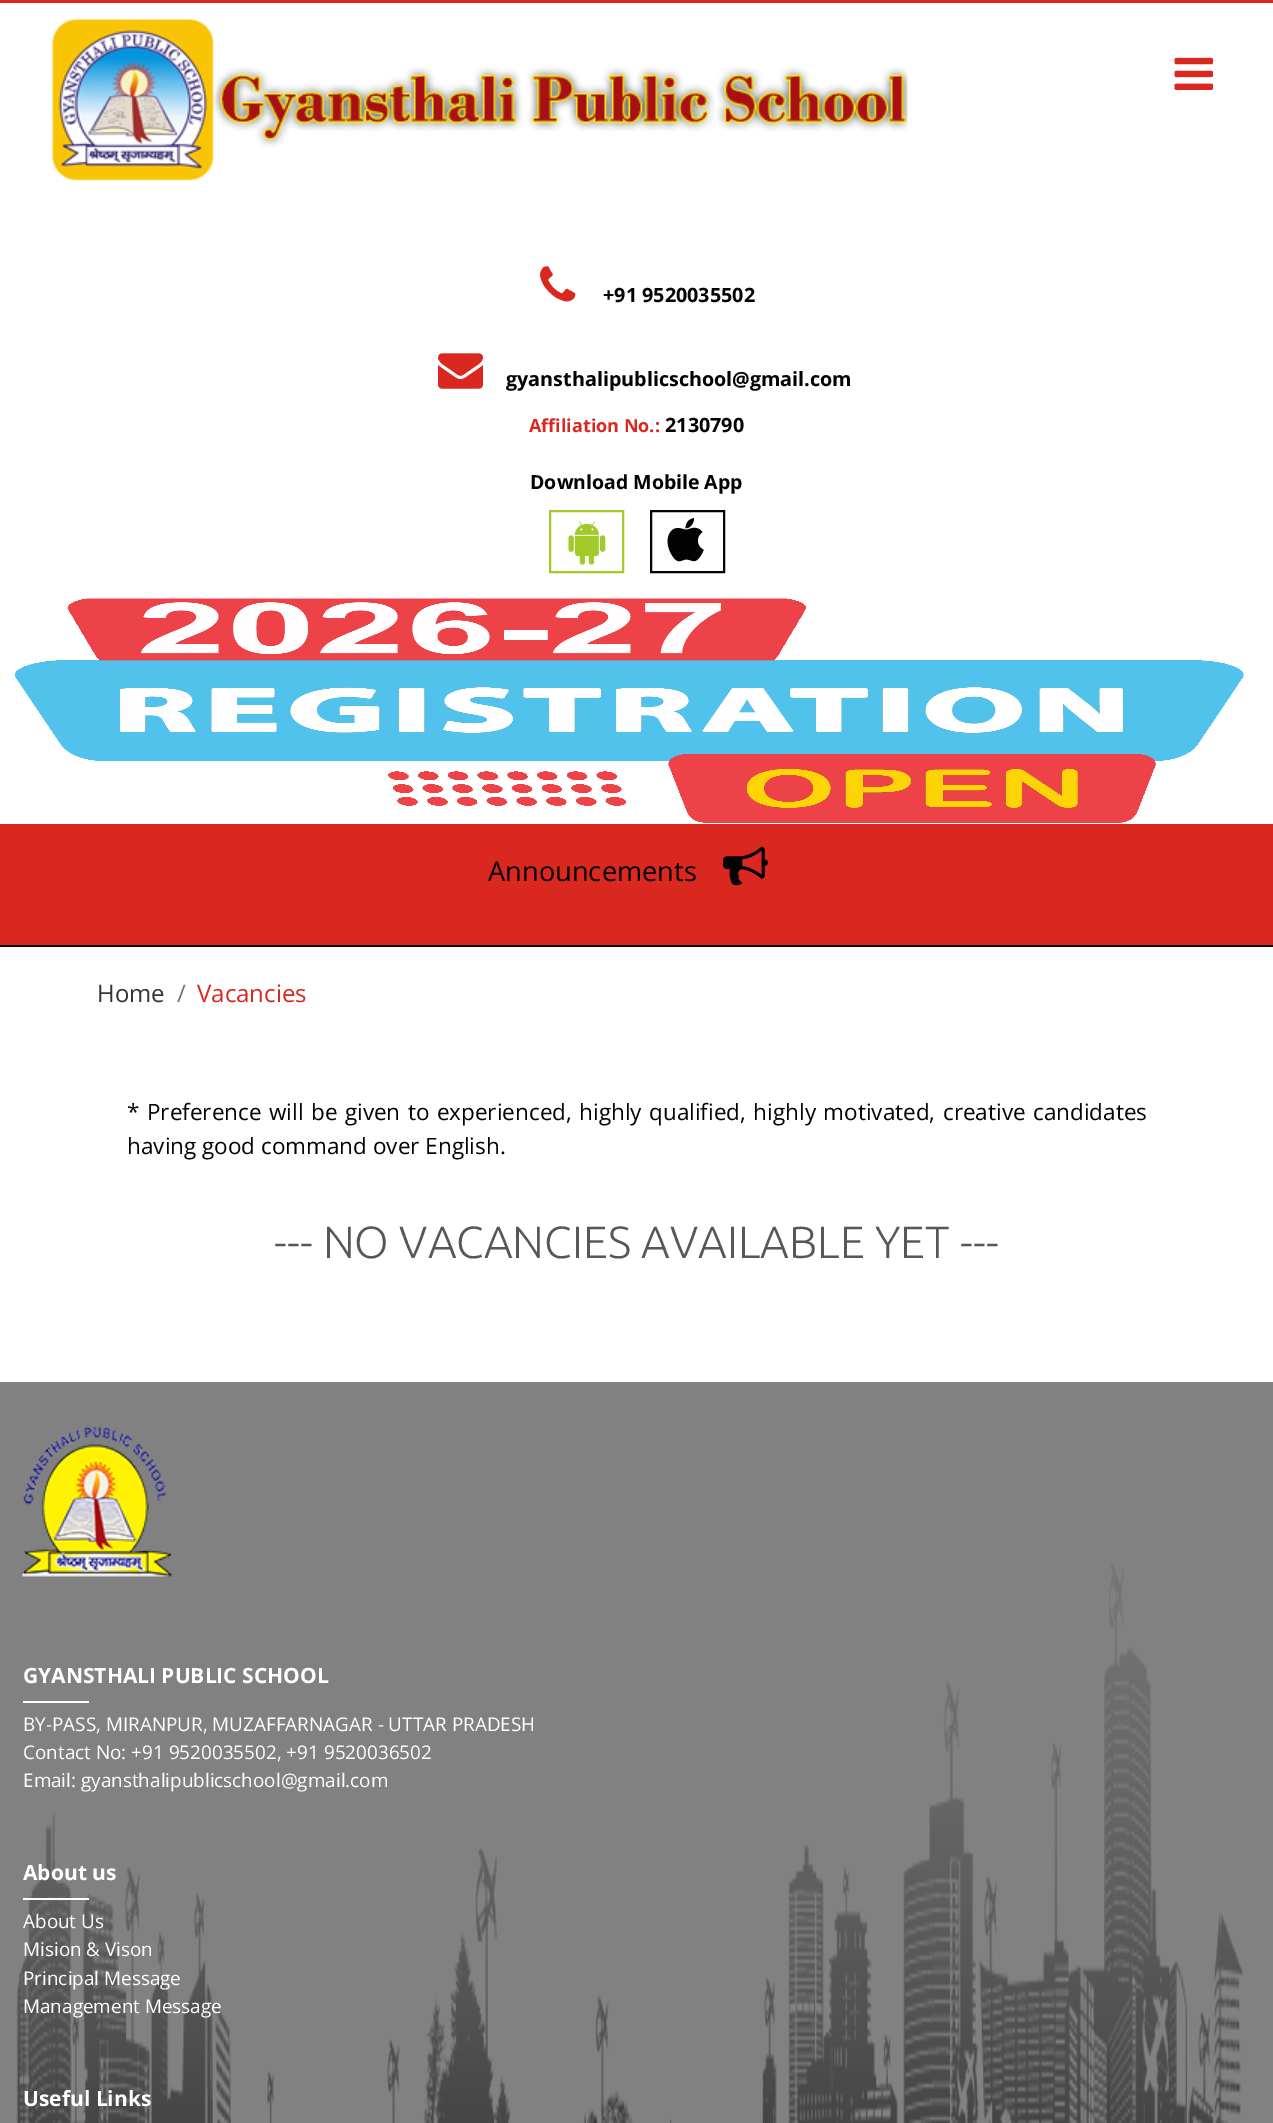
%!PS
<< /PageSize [1273 2123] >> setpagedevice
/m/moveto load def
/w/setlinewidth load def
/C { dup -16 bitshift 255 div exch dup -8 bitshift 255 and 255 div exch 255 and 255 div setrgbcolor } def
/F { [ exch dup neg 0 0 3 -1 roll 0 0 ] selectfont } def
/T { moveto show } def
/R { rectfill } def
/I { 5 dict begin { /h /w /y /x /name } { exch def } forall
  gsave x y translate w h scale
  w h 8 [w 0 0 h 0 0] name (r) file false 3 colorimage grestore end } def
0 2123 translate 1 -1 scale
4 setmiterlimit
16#FFFFFF C
0 0 1273 2123 R
(1.rgb) 1174 57 40 33 I
16#DA271F C
0 0 1273 3 R
(2.rgb) 52 19 856 162 I
(3.rgb) 540 266 36 36 I
/OpenSans-Bold 19.75 F
16#030303 C
(+91 9520035502) 603 302 T
(4.rgb) 438 353 45 36 I
(gyansthalipublicschool@gmail.com) 506 386 T
/OpenSans-Bold 18 F
16#DA271F C
(Affiliation No.:) 529 432 T
/OpenSans-Bold 19.75 F
16#030303 C
(2130790) 665 432 T
/OpenSans-Bold 19.5 F
(Download Mobile App) 530 489 T
16#A4C92A C
2 w
550 511 73 61 rectstroke
(5.rgb) 568 521 38 44 I
16#030303 C
651 511 73 61 rectstroke
(6.rgb) 667 517 37 45 I
(7.rgb) 15 598 1229 225 I
16#DA271F C
0 824 1273 121 R
/OpenSans-Regular 27.25 F
16#030303 C
(Announcements) 488 881 T
(8.rgb) 723 846 45 40 I
0 945 1273 2 R
/OpenSans-Regular 24 F
16#353535 C
(Home) 97 1002 T
16#6D767E C
(/) 177 1002 T
16#DA271F C
(Vacancies) 197 1002 T
/OpenSans-Regular 22.5 F
16#030303 C
127 1120 m 1.6 0 32 (* Preference will be given to experienced, highly qualified, highly motivated, creative candidates) widthshow
(having good command over English.) 127 1154 T
/Ubuntu-Light 45 F
16#575757 C
(--- NO VACANCIES AVAILABLE YET ---) 274 1258 T
16#818181 C
0 1382 1273 741 R
(9.rgb) 16 1564 1227 559 I
(10.rgb) 22 1426 151 151 I
/OpenSans-Bold 21 F
16#FFFFFF C
(GYANSTHALI PUBLIC SCHOOL) 23 1683 T
23 1701 66 2 R
/OpenSans-Regular 18.9 F
(BY-PASS, MIRANPUR, MUZAFFARNAGAR - UTTAR PRADESH) 23 1731 T
(Contact No: +91 9520035502, +91 9520036502) 23 1759 T
(Email: gyansthalipublicschool@gmail.com) 23 1787 T
/OpenSans-Bold 21 F
(About us) 23 1880 T
23 1898 66 2 R
/OpenSans-Regular 18.9 F
(About Us) 23 1928 T
(Mision & Vison) 23 1956 T
(Principal Message) 23 1985 T
(Management Message) 23 2013 T
/OpenSans-Bold 21 F
(Useful Links) 23 2106 T
showpage
